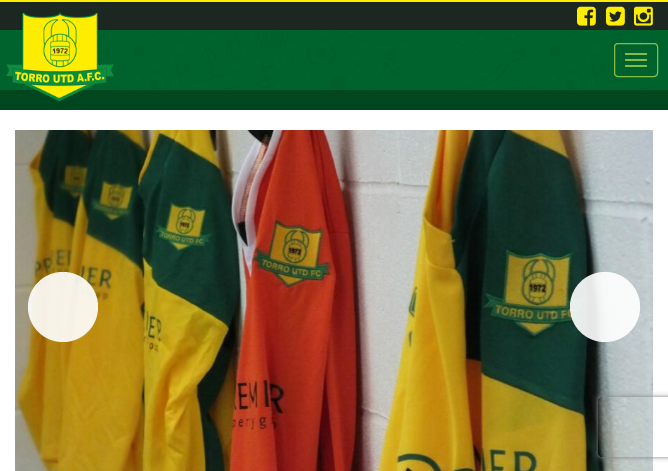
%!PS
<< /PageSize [668 471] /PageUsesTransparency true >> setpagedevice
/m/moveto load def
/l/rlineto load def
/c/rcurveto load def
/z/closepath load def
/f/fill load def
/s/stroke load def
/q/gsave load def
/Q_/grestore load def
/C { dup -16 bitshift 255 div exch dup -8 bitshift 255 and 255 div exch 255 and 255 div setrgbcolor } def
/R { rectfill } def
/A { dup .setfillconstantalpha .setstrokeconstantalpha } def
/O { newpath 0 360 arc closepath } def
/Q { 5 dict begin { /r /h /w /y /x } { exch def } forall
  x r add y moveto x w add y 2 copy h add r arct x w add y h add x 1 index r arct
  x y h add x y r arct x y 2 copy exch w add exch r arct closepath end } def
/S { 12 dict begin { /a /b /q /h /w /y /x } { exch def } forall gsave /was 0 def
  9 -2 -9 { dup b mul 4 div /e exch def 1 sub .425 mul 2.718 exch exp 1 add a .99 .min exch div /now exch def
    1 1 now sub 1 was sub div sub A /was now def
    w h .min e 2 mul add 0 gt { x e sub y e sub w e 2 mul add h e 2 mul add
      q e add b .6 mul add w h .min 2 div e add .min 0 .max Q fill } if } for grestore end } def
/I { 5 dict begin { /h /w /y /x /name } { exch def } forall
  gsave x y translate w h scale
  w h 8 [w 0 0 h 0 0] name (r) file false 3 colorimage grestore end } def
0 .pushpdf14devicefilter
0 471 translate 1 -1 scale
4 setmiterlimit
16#FFFFFF C
0 0 668 471 R
16#1C2721 C
0 2 668 28 R
16#FFED00 C
0 0 668 2 R
(1.rgb) 577 6 19 20 I
(2.rgb) 606 6 19 20 I
(3.rgb) 634 6 19 20 I
16#00632C C
657 30 11 60 R
(4.rgb) 0 30 657 60 I
16#004720 C
0 90 668 20 R
(5.rgb) 6 12 108 89 I
16#86BC42 C
614.5 43.5 43 33 3.5 Q s
625 53 22 2 1 Q f
625 59 22 2 1 Q f
625 65 22 2 1 Q f
(6.rgb) 15 130 638 341 I
0.9 A
16#FFFFFF C
63 307 35 O f
605 307 35 O f
q
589 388 m 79 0 l 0 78 l -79 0 l z 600 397 m 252 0 l 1 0 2 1 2 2 c 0 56 l 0 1 -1 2 -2 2 c -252 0 l -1 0 -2 -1 -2 -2 c 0 -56 l 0 -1 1 -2 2 -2 c z eoclip newpath
1 A
16#808080 C
598 397 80 60 2 2.5 1 S
Q_
.poppdf14devicefilter showpage
